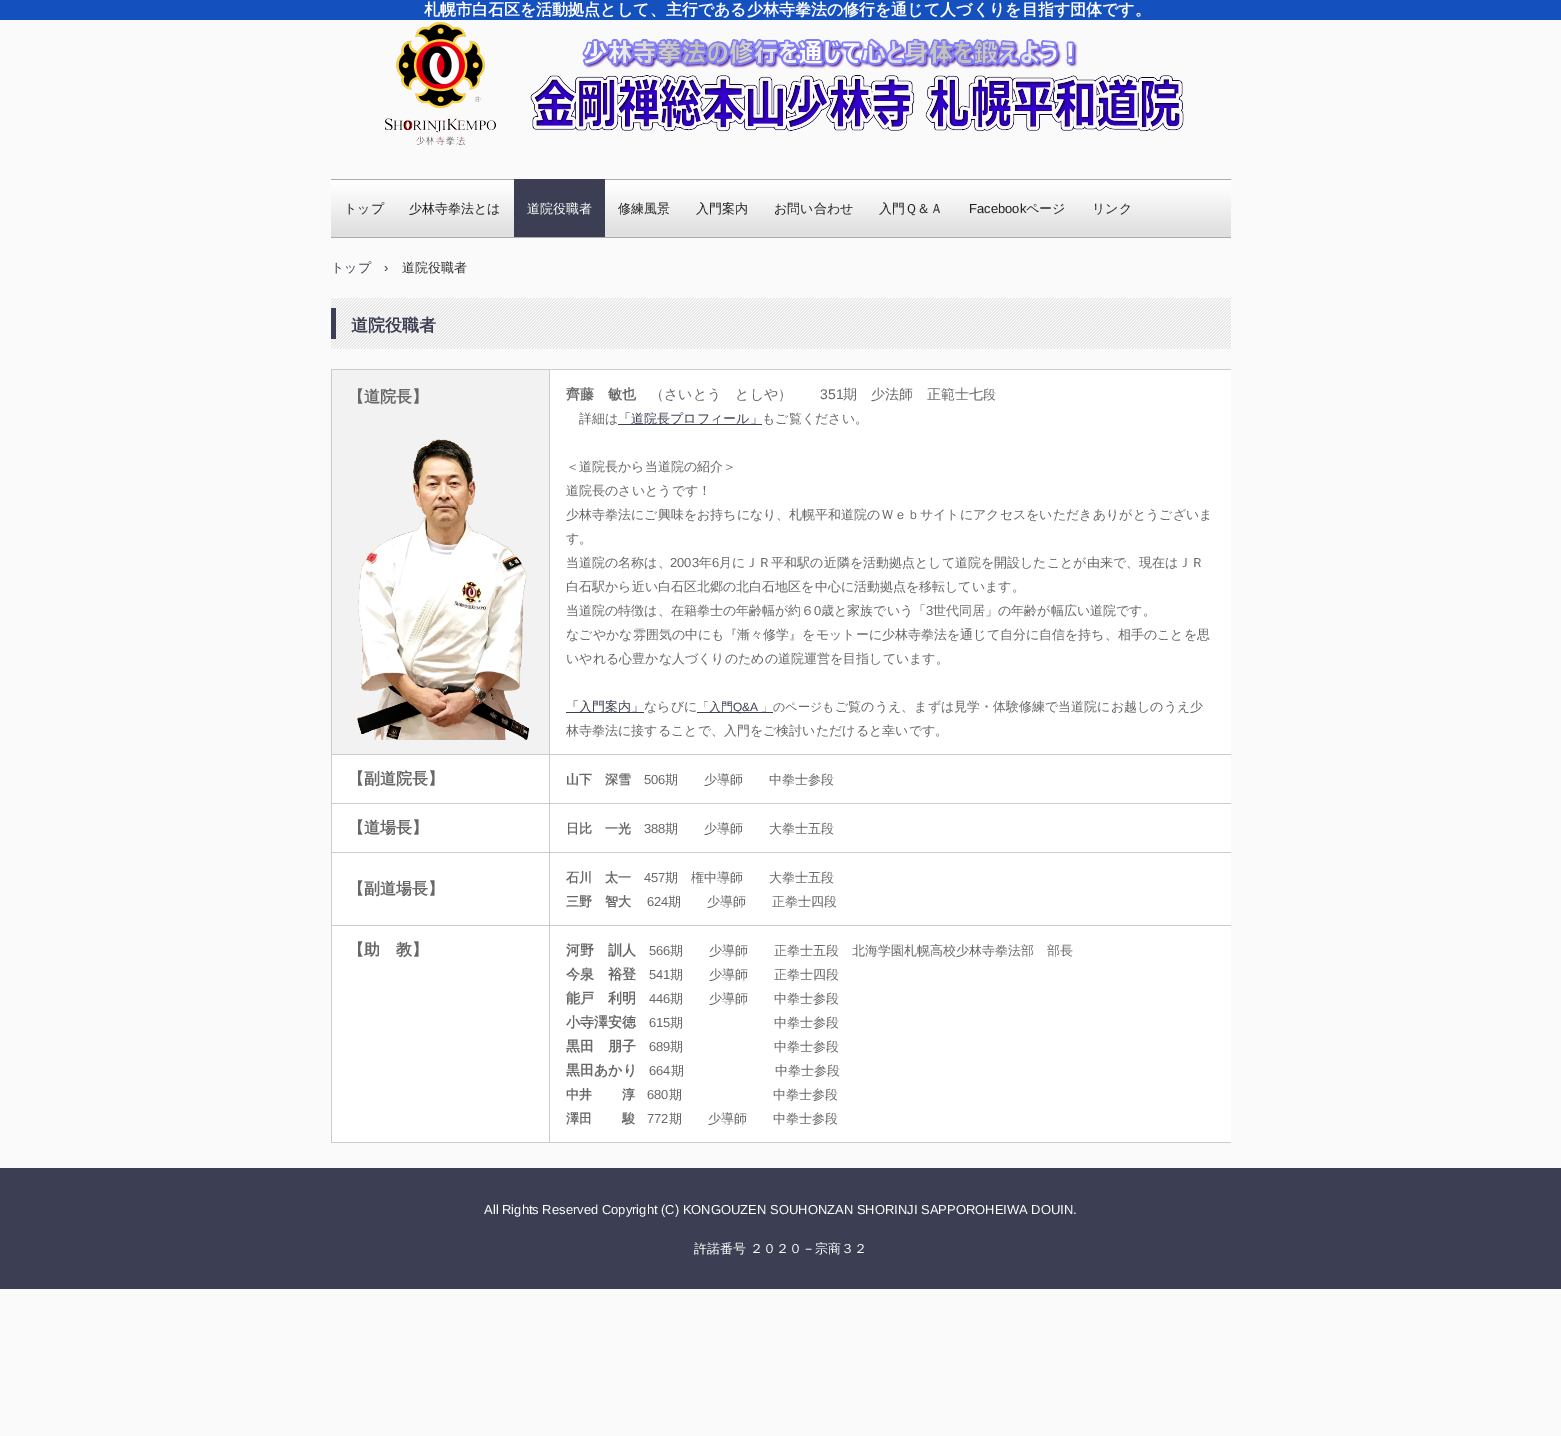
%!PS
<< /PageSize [1561 1436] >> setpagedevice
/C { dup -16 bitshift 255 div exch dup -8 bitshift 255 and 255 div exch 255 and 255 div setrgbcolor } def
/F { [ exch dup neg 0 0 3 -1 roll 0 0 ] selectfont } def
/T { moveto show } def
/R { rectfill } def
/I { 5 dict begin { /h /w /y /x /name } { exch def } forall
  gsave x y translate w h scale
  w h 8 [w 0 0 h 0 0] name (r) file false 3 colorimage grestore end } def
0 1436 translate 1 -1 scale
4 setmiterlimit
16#FAFAFA C
0 0 1561 1436 R
16#1550BF C
0 0 1561 20 R
/WenQuanYiZenHei-Bold 16 F
16#FFFFFF C
(札幌市白石区を活動拠点として、主行である少林寺拳法の修行を通じて人づくりを目指す団体です。) 424 15 T
(1.rgb) 385 22 799 123 I
(2.rgb) 331 179 900 59 I
/WenQuanYiZenHei-Medium 13 F
16#222222 C
(トップ) 344 213 T
(少林寺拳法とは) 409 213 T
16#3C3F53 C
514 179 91 58 R
16#FFFFFF C
(道院役職者) 527 213 T
16#222222 C
(修練風景) 618 213 T
(入門案内) 696 213 T
(お問い合わせ) 774 213 T
(入門Ｑ＆Ａ) 879 213 T
/LiberationSans-Regular 13 F
(Facebook) 969 213 T
/WenQuanYiZenHei-Medium 13 F
(ページ) 1026 213 T
(リンク) 1092 213 T
16#3C3F53 C
(トップ) 331 272 T
/LiberationSans-Regular 13 F
16#333333 C
(›) 384 272 T
/WenQuanYiZenHei-Medium 13 F
(道院役職者) 402 272 T
(3.rgb) 331 298 900 51 I
16#3C3F53 C
331 308 5 31 R
/WenQuanYiZenHei-Bold 17 F
(道院役職者) 351 331 T
16#F2F2F2 C
332 370 217 384 R
16#CCCCCC C
549 369 682 1 R
549 754 682 1 R
549 803 682 1 R
549 852 682 1 R
549 925 682 1 R
549 1142 682 1 R
549 925 1 218 R
331 925 219 1 R
549 852 1 74 R
331 852 219 1 R
549 803 1 50 R
331 803 219 1 R
549 754 1 50 R
331 754 219 1 R
549 369 1 386 R
331 369 219 1 R
331 1142 219 1 R
331 925 1 218 R
331 852 1 74 R
331 803 1 50 R
331 754 1 50 R
331 369 1 386 R
/WenQuanYiZenHei-Bold 16 F
16#676767 C
(【道院長】) 348 402 T
(4.rgb) 357 439 172 301 I
16#FFFFFF C
550 370 681 384 R
/WenQuanYiZenHei-Bold 14 F
16#676767 C
(齊藤　敏也) 566 399 T
/WenQuanYiZenHei-Medium 14 F
(（さいとう　としや）) 650 399 T
/LiberationSans-Regular 14 F
(351) 820 399 T
/WenQuanYiZenHei-Medium 14 F
(期　少法師　正範士七) 843 399 T
/WenQuanYiZenHei-Medium 13 F
(段) 983 399 T
(詳細は) 579 423 T
16#3C3F53 C
618 424 144 1 R
(「道院長プロフィール」) 618 423 T
16#676767 C
(もご覧ください。) 762 423 T
(＜道院長から当道院の紹介＞) 566 471 T
(道院長のさいとうです！) 566 495 T
(少林寺拳法にご興味をお持ちになり、札幌平和道院のＷｅｂサイトにアクセスをいただきありがとうございま) 566 519 T
(す。) 566 543 T
(当道院の名称は、) 566 567 T
/LiberationSans-Regular 13 F
(2003) 670 567 T
/WenQuanYiZenHei-Medium 13 F
(年) 699 567 T
/LiberationSans-Regular 13 F
(6) 712 567 T
/WenQuanYiZenHei-Medium 13 F
(月にＪＲ平和駅の近隣を活動拠点として道院を開設したことが由来で、現在はＪＲ) 719 567 T
(白石駅から近い白石区北郷の北白石地区を中心に活動拠点を移転しています。) 566 591 T
(当道院の特徴は、在籍拳士の年齢幅が約６) 566 615 T
/LiberationSans-Regular 13 F
(0) 814 615 T
/WenQuanYiZenHei-Medium 13 F
(歳と家族でいう「) 821 615 T
/LiberationSans-Regular 13 F
(3) 926 615 T
/WenQuanYiZenHei-Medium 13 F
(世代同居」の年齢が幅広い道院です。) 933 615 T
(なごやかな雰囲気の中にも『漸々修学』をモットーに少林寺拳法を通じて自分に自信を持ち、相手のことを思) 566 639 T
(いやれる心豊かな人づくりのための道院運営を目指しています。) 566 663 T
16#3C3F53 C
566 712 78 1 R
(「入門案内」) 566 711 T
16#676767 C
(ならびに) 644 711 T
16#3C3F53 C
697 712 76 1 R
/WenQuanYiZenHei-Medium 12 F
(「入門) 697 711 T
/LiberationSans-Regular 12 F
(Q&A) 733 711 T
/WenQuanYiZenHei-Medium 12 F
(」) 761 711 T
16#676767 C
(のページも) 773 711 T
/WenQuanYiZenHei-Medium 13 F
(ご覧のうえ、まずは見学・体験修練で当道院にお越しのうえ少) 835 711 T
(林寺拳法に接することで、入門をご検討いただけると幸いです。) 566 735 T
16#FFFFFF C
332 755 217 48 R
/WenQuanYiZenHei-Bold 16 F
16#676767 C
(【副道院長】) 348 784 T
16#FFFFFF C
550 755 681 48 R
/WenQuanYiZenHei-Bold 13 F
16#676767 C
(山下　深雪) 566 784 T
/LiberationSans-Regular 13 F
(506) 644 784 T
/WenQuanYiZenHei-Medium 13 F
(期　　少導師　　中拳士参段) 665 784 T
16#FFFFFF C
332 804 217 48 R
/WenQuanYiZenHei-Bold 16 F
16#676767 C
(【道場長】) 348 833 T
16#FFFFFF C
550 804 681 48 R
/WenQuanYiZenHei-Bold 13 F
16#676767 C
(日比　一光) 566 833 T
/LiberationSans-Regular 13 F
(388) 644 833 T
/WenQuanYiZenHei-Medium 13 F
(期　　少導師　　大拳士五段) 665 833 T
16#FFFFFF C
332 853 217 72 R
/WenQuanYiZenHei-Bold 16 F
16#676767 C
(【副道場長】) 348 894 T
16#FFFFFF C
550 853 681 72 R
/WenQuanYiZenHei-Bold 13 F
16#676767 C
(石川　太一) 566 882 T
/LiberationSans-Regular 13 F
(457) 644 882 T
/WenQuanYiZenHei-Medium 13 F
(期　権中導師　　大拳士五段) 665 882 T
/WenQuanYiZenHei-Bold 13 F
(三野　智大) 566 906 T
/LiberationSans-Regular 13 F
(624) 647 906 T
/WenQuanYiZenHei-Medium 13 F
(期　　少導師　　正拳士四段) 668 906 T
16#FFFFFF C
332 926 217 216 R
/WenQuanYiZenHei-Bold 16 F
16#676767 C
(【助　教】) 348 955 T
16#FFFFFF C
550 926 681 216 R
/WenQuanYiZenHei-Bold 14 F
16#676767 C
(河野　訓人) 566 955 T
/LiberationSans-Regular 13 F
(566) 649 955 T
/WenQuanYiZenHei-Medium 13 F
(期　　少導師　　正拳士五段　北海学園札幌高校少林寺拳法部　部長) 670 955 T
/WenQuanYiZenHei-Bold 14 F
(今泉　裕登) 566 979 T
/LiberationSans-Regular 13 F
(541) 649 979 T
/WenQuanYiZenHei-Medium 13 F
(期　　少導師　　正拳士四段) 670 979 T
/WenQuanYiZenHei-Bold 14 F
(能戸　利明) 566 1003 T
/LiberationSans-Regular 13 F
(446) 649 1003 T
/WenQuanYiZenHei-Medium 13 F
(期　　少導師　　中拳士参段) 670 1003 T
/WenQuanYiZenHei-Bold 14 F
(小寺澤安徳) 566 1027 T
/LiberationSans-Regular 13 F
(615) 649 1027 T
/WenQuanYiZenHei-Medium 13 F
(期) 670 1027 T
(中拳士参段) 774 1027 T
/WenQuanYiZenHei-Bold 14 F
(黒田　朋子) 566 1051 T
/LiberationSans-Regular 13 F
(689) 649 1051 T
/WenQuanYiZenHei-Medium 13 F
(期　　　　　　　中拳士参段) 670 1051 T
/WenQuanYiZenHei-Bold 14 F
(黒田あかり) 566 1075 T
/LiberationSans-Regular 13 F
(664) 649 1075 T
/WenQuanYiZenHei-Medium 13 F
(期　　　　　　　中拳士参段) 671 1075 T
/WenQuanYiZenHei-Bold 13 F
(中井　　 淳) 566 1099 T
/LiberationSans-Regular 13 F
(680) 647 1099 T
/WenQuanYiZenHei-Medium 13 F
(期) 669 1099 T
(中拳士参段) 773 1099 T
/WenQuanYiZenHei-Bold 13 F
(澤田　　 駿) 566 1123 T
/LiberationSans-Regular 13 F
(772) 647 1123 T
/WenQuanYiZenHei-Medium 13 F
(期) 669 1123 T
(少導師) 708 1123 T
(中拳士参段) 773 1123 T
16#3C3F53 C
0 1168 1561 121 R
/LiberationSans-Regular 13 F
16#FFFFFF C
(All Rights Reserved Copyright \(C\) KONGOUZEN SOUHONZAN SHORINJI SAPPOROHEIWA DOUIN.) 484 1214 T
/WenQuanYiZenHei-Medium 13 F
(許諾番号 ２０２０－宗商３２) 694 1253 T
showpage
